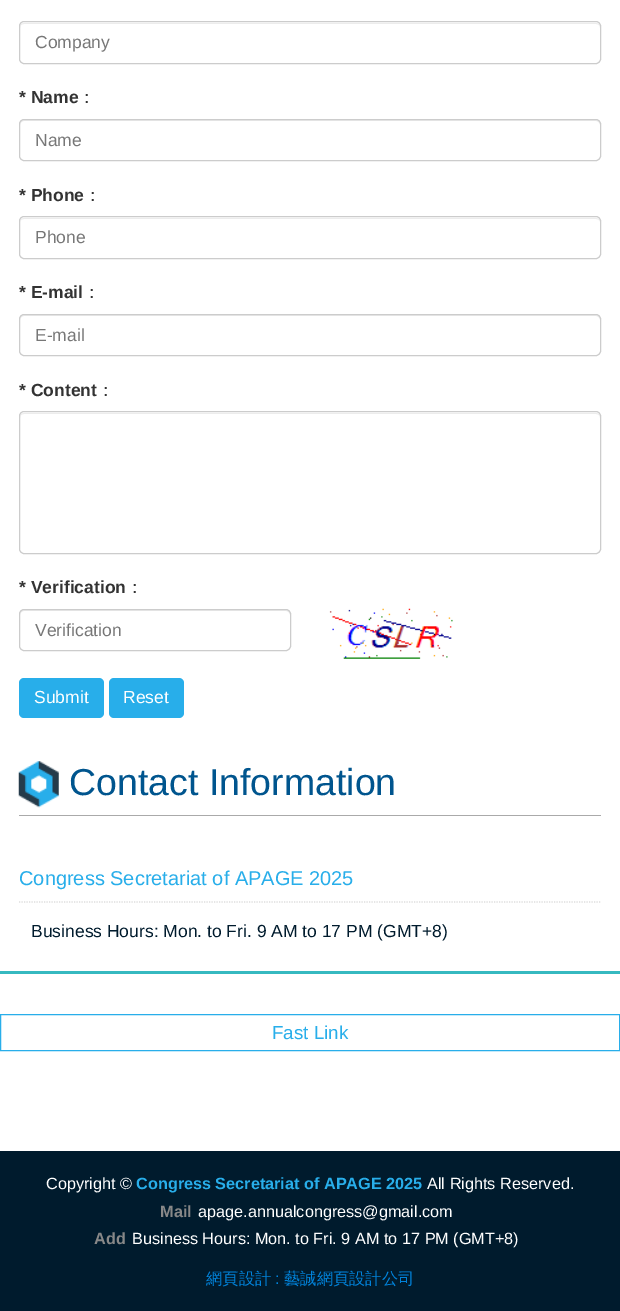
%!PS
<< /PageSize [620 1311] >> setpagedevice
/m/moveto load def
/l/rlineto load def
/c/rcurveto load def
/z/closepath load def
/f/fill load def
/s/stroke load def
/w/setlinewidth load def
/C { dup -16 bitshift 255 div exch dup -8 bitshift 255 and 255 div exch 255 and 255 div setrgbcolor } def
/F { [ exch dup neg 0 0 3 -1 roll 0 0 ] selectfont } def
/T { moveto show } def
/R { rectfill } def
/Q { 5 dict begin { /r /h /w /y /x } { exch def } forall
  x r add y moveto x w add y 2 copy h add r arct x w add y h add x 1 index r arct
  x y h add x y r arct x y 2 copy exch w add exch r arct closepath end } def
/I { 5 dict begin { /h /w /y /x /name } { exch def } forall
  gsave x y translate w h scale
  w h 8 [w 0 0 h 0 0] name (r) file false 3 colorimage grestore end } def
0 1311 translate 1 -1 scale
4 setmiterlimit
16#FFFFFF C
0 0 620 1311 R
16#ECECEC C
24 24 m 572 0 l 2 0 4 1 4 4 c 0 -1 l 0 -2 -2 -4 -4 -4 c -572 0 l -2 0 -4 2 -4 4 c 0 1 l 0 -3 2 -4 4 -4 c z f
16#CCCCCC C
19.5 21.5 581 42 4.5 Q s
/LiberationSans-Regular 17.5 F
16#777777 C
(Company) 35 48 T
/LiberationSans-Bold 17.5 F
16#333333 C
(* Name) 19 103 T
/WenQuanYiZenHei-Medium 17.5 F
(：) 78 103 T
16#ECECEC C
24 121 m 572 0 l 2 0 4 2 4 4 c 0 -1 l 0 -2 -2 -4 -4 -4 c -572 0 l -2 0 -4 2 -4 4 c 0 1 l 0 -2 2 -4 4 -4 c z f
16#CCCCCC C
19.5 119.5 581 41 4.5 Q s
/LiberationSans-Regular 17.5 F
16#777777 C
(Name) 35 146 T
/LiberationSans-Bold 17.5 F
16#333333 C
(* Phone) 19 201 T
/WenQuanYiZenHei-Medium 17.5 F
(：) 84 201 T
16#ECECEC C
24 219 m 572 0 l 2 0 4 1 4 3 c 0 -2 -2 -4 -4 -4 c -572 0 l -2 0 -4 2 -4 4 c 0 -2 2 -3 4 -3 c z f
16#CCCCCC C
19.5 216.5 581 42 4.5 Q s
/LiberationSans-Regular 17.5 F
16#777777 C
(Phone) 35 243 T
/LiberationSans-Bold 17.5 F
16#333333 C
(* E-mail) 19 298 T
/WenQuanYiZenHei-Medium 17.5 F
(：) 83 298 T
16#ECECEC C
24 316 m 572 0 l 2 0 4 2 4 4 c 0 -1 l 0 -2 -2 -4 -4 -4 c -572 0 l -2 0 -4 2 -4 4 c 0 1 l 0 -2 2 -4 4 -4 c z f
16#CCCCCC C
19.5 314.5 581 41 4.5 Q s
/LiberationSans-Regular 17.5 F
16#777777 C
(E-mail) 35 341 T
/LiberationSans-Bold 17.5 F
16#333333 C
(* Content) 19 396 T
/WenQuanYiZenHei-Medium 17.5 F
(：) 97 396 T
16#ECECEC C
24 414 m 572 0 l 2 0 4 1 4 4 c 0 -1 l 0 -2 -2 -4 -4 -4 c -572 0 l -2 0 -4 2 -4 4 c 0 1 l 0 -3 2 -4 4 -4 c z f
16#CCCCCC C
19.5 411.5 581 142 4.5 Q s
/LiberationSans-Bold 17.5 F
16#333333 C
(* Verification) 19 593 T
/WenQuanYiZenHei-Medium 17.5 F
(：) 126 593 T
16#ECECEC C
24 611 m 262 0 l 2 0 4 2 4 4 c 0 -3 -1 -5 -4 -5 c -262 0 l -3 0 -4 2 -4 5 c 0 -2 2 -4 4 -4 c z f
16#CCCCCC C
19.5 609.5 271 41 4.5 Q s
/LiberationSans-Regular 17.5 F
16#777777 C
(Verification) 35 636 T
(1.rgb) 329 608 124 51 I
16#28AEEA C
19 678 85 40 5 Q f
16#FFFFFF C
(Submit) 34 703 T
16#28AEEA C
109 678 75 40 5 Q f
16#FFFFFF C
(Reset) 123 703 T
(2.rgb) 18 761 41 47 I
16#AAAAAA C
19 815 582 1 R
/LiberationSans-Regular 37.5 F
16#00558E C
(Contact Information) 69 795 T
16#DDDDDD C
1.2 w
[1.25 1.25] 0 setdash
19 902 m 582 0 l s
/LiberationSans-Regular 20 F
16#28AEEA C
(Congress Secretariat of APAGE 2025) 19 885 T
/LiberationSans-Regular 17.5 F
16#001B2D C
(Business Hours: Mon. to Fri. 9 AM to 17 PM \(GMT+8\)) 31 937 T
16#36B9C0 C
0 971 620 3 R
16#28AEEA C
1 w
[] 0 setdash
.5 1014.5 619 36 rectstroke
/LiberationSans-Regular 18.75 F
(Fast Link) 272 1039 T
16#001B2D C
0 1151 620 160 R
/LiberationSans-Regular 16.25 F
16#FFFFFF C
(Copyright ©) 46 1189 T
/LiberationSans-Bold 16.25 F
16#28AEEA C
(Congress Secretariat of APAGE 2025) 136 1189 T
/LiberationSans-Regular 16.25 F
16#FFFFFF C
(All Rights Reserved.) 427 1189 T
/LiberationSans-Bold 16.25 F
16#888888 C
(Mail) 160 1217 T
/LiberationSans-Regular 16.25 F
16#FFFFFF C
(apage.annualcongress@gmail.com) 198 1217 T
/LiberationSans-Bold 16.25 F
16#888888 C
(Add) 94 1244 T
/LiberationSans-Regular 16.25 F
16#FFFFFF C
(Business Hours: Mon. to Fri. 9 AM to 17 PM \(GMT+8\)) 132 1244 T
/WenQuanYiZenHei-Medium 16.25 F
16#0083DB C
(網頁設計) 206 1284 T
/LiberationSans-Regular 16.25 F
(:) 275 1284 T
/WenQuanYiZenHei-Medium 16.25 F
(藝誠網頁設計公司) 284 1284 T
showpage
